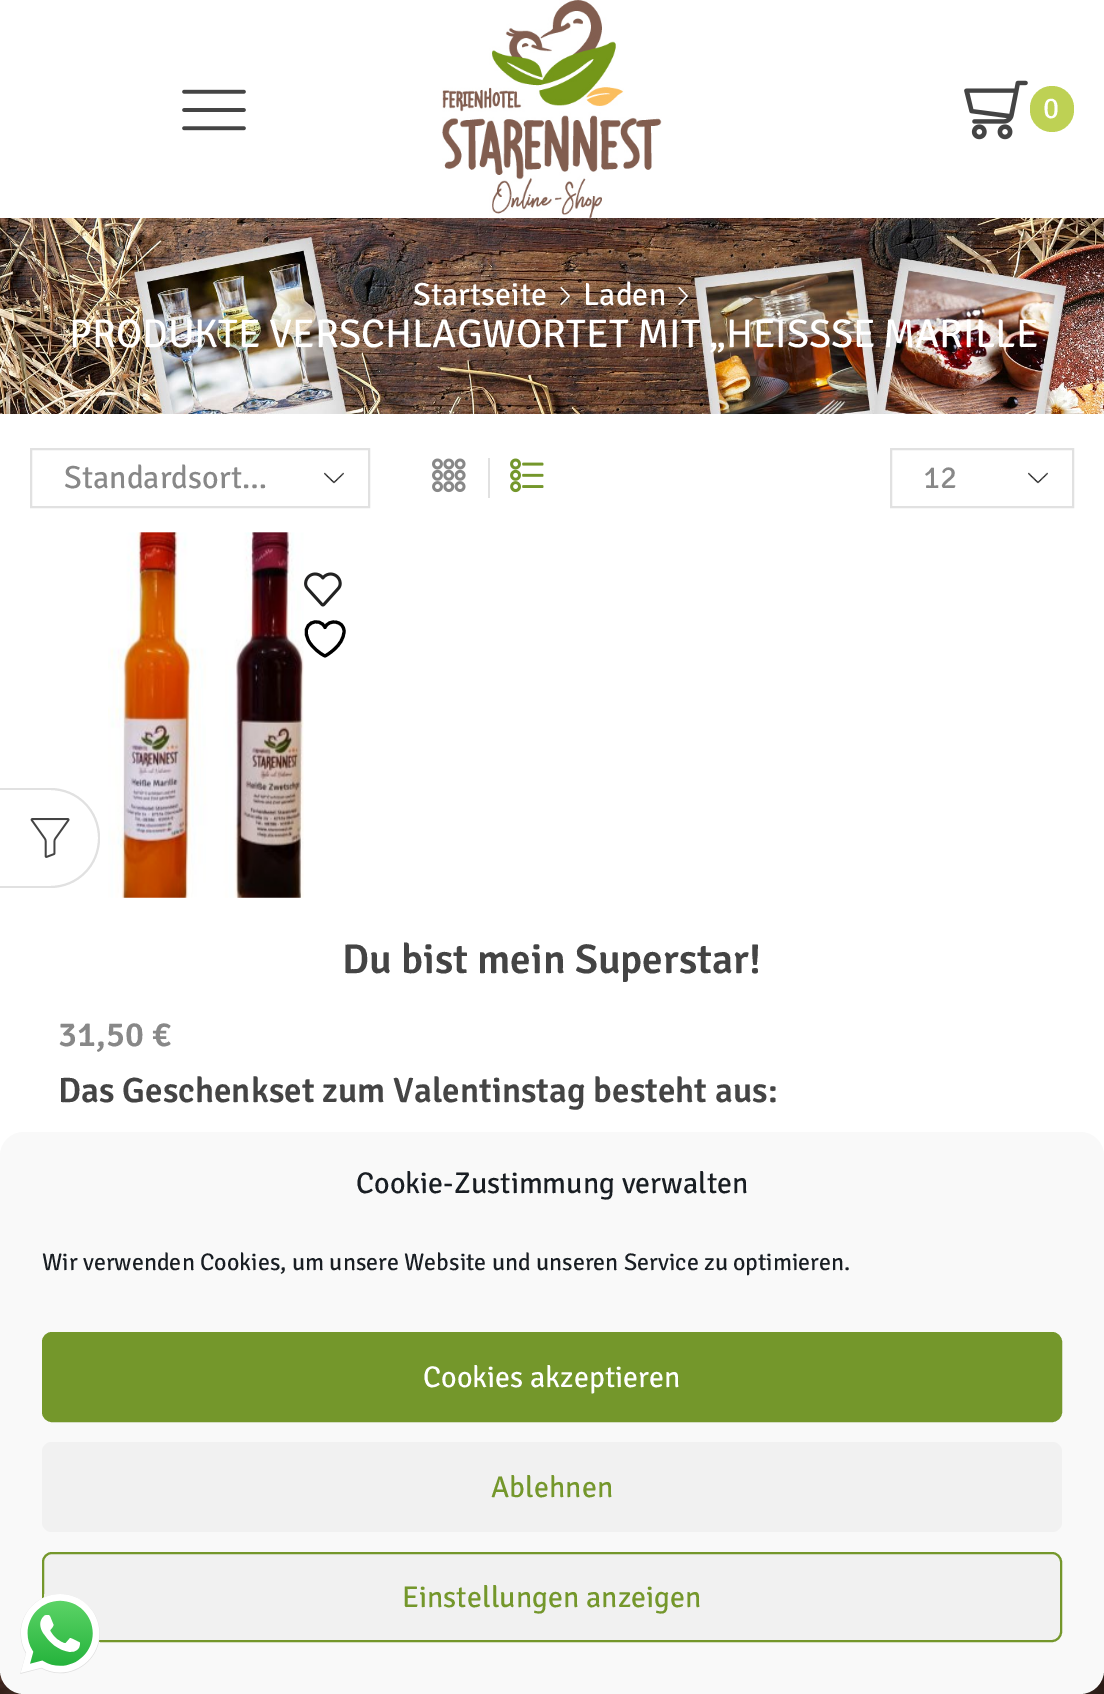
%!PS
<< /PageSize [1104 1694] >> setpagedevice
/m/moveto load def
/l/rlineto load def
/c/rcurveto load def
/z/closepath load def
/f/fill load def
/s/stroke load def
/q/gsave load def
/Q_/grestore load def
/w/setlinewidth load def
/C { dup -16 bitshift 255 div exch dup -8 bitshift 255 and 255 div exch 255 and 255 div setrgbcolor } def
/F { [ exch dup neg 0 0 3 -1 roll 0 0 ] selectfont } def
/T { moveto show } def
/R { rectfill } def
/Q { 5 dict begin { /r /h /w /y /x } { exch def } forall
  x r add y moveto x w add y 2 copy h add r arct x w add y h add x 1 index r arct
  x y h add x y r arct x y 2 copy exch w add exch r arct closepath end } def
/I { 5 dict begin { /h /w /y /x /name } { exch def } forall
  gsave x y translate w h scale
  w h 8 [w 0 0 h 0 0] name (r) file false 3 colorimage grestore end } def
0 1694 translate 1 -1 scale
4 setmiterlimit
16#FFFFFF C
0 0 1104 1694 R
16#E1E1E1 C
0 788 m 50 0 l 28 0 50 22 50 50 c 0 28 -22 50 -50 50 c -50 0 l z 0 790 m 50 0 l 27 0 48 21 48 48 c 0 27 -21 48 -48 48 c -50 0 l z eofill
(1.rgb) 30 818 40 40 I
(2.rgb) 182 89 64 42 I
(3.rgb) 442 0 220 218 I
(4.rgb) 964 80 64 60 I
16#BED154 C
1030 86 44 46 22 Q f
/SignikaNegative-Light 30 F
16#FFFFFF C
(0) 1043 118 T
(5.rgb) 0 218 1104 196 I
/SignikaNegative-Light 32 F
(Startseite) 413 305 T
(6.rgb) 560 287 10 19 I
(Laden) 583 305 T
(7.rgb) 678 287 10 19 I
/SignikaNegative-Light 40 F
(PRODUKTE VERSCHLAGWORTET MIT „HEISS) 69 347 T
831 347 m -2 0 32 (SE MARILLE) widthshow
(8.rgb) 324 472 20 12 I
16#E1E1E1 C
2 w
31 449 338 58 rectstroke
/SignikaNegative-Light 32 F
16#888888 C
(Standardsort…) 64 488 T
(9.rgb) 432 458 34 35 I
16#E1E1E1 C
488 458 2 40 R
(10.rgb) 510 458 34 35 I
(8.rgb) 1028 472 20 12 I
891 449 182 58 rectstroke
16#888888 C
(12) 923 488 T
(11.rgb) 108 532 196 366 I
(12.rgb) 304 572 38 35 I
16#000000 C
3.1 w
1 setlinecap
1 setlinejoin
344 631 m 0 -10 -15 -12.5 -19 -3.5 c -5 -11.5 -26.5 -5 -16 14 c 3.5 6 10 11.5 16 14.5 c 0 0 19 -10 19 -25 c z s
/SignikaNegative-SemiBold 41.5 F
16#444444 C
(Du bist mein Superstar!) 342 973 T
/SignikaNegative-SemiBold 35.2 F
16#888888 C
(31,50 €) 58 1046 T
16#444444 C
(Das Geschenkset zum Valentinstag besteht aus:) 58 1102 T
(13.rgb) 0 1670 1104 24 I
16#F9F9F9 C
1 1133 1102 560 23 Q q f Q_
2 w
0 setlinecap
0 setlinejoin
s
/SignikaNegative-Light 30 F
16#191E23 C
(Cookie-Zustimmung verwalten) 356 1193 T
/SignikaNegative-Light 24 F
(Wir verwenden Cookies, um unsere Website und unseren Service zu optimieren.) 42 1270 T
16#74972B C
43 1333 1018 88 9 Q q f Q_
s
/SignikaNegative-Light 30 F
16#FFFFFF C
(Cookies akzeptieren) 423 1387 T
16#F1F1F1 C
42 1442 1020 90 10 Q f
16#74972B C
(Ablehnen) 491 1497 T
16#F1F1F1 C
43 1553 1018 88 9 Q q f Q_
16#74972B C
s
(Einstellungen anzeigen) 402 1607 T
(14.rgb) 20 1594 80 80 I
showpage
